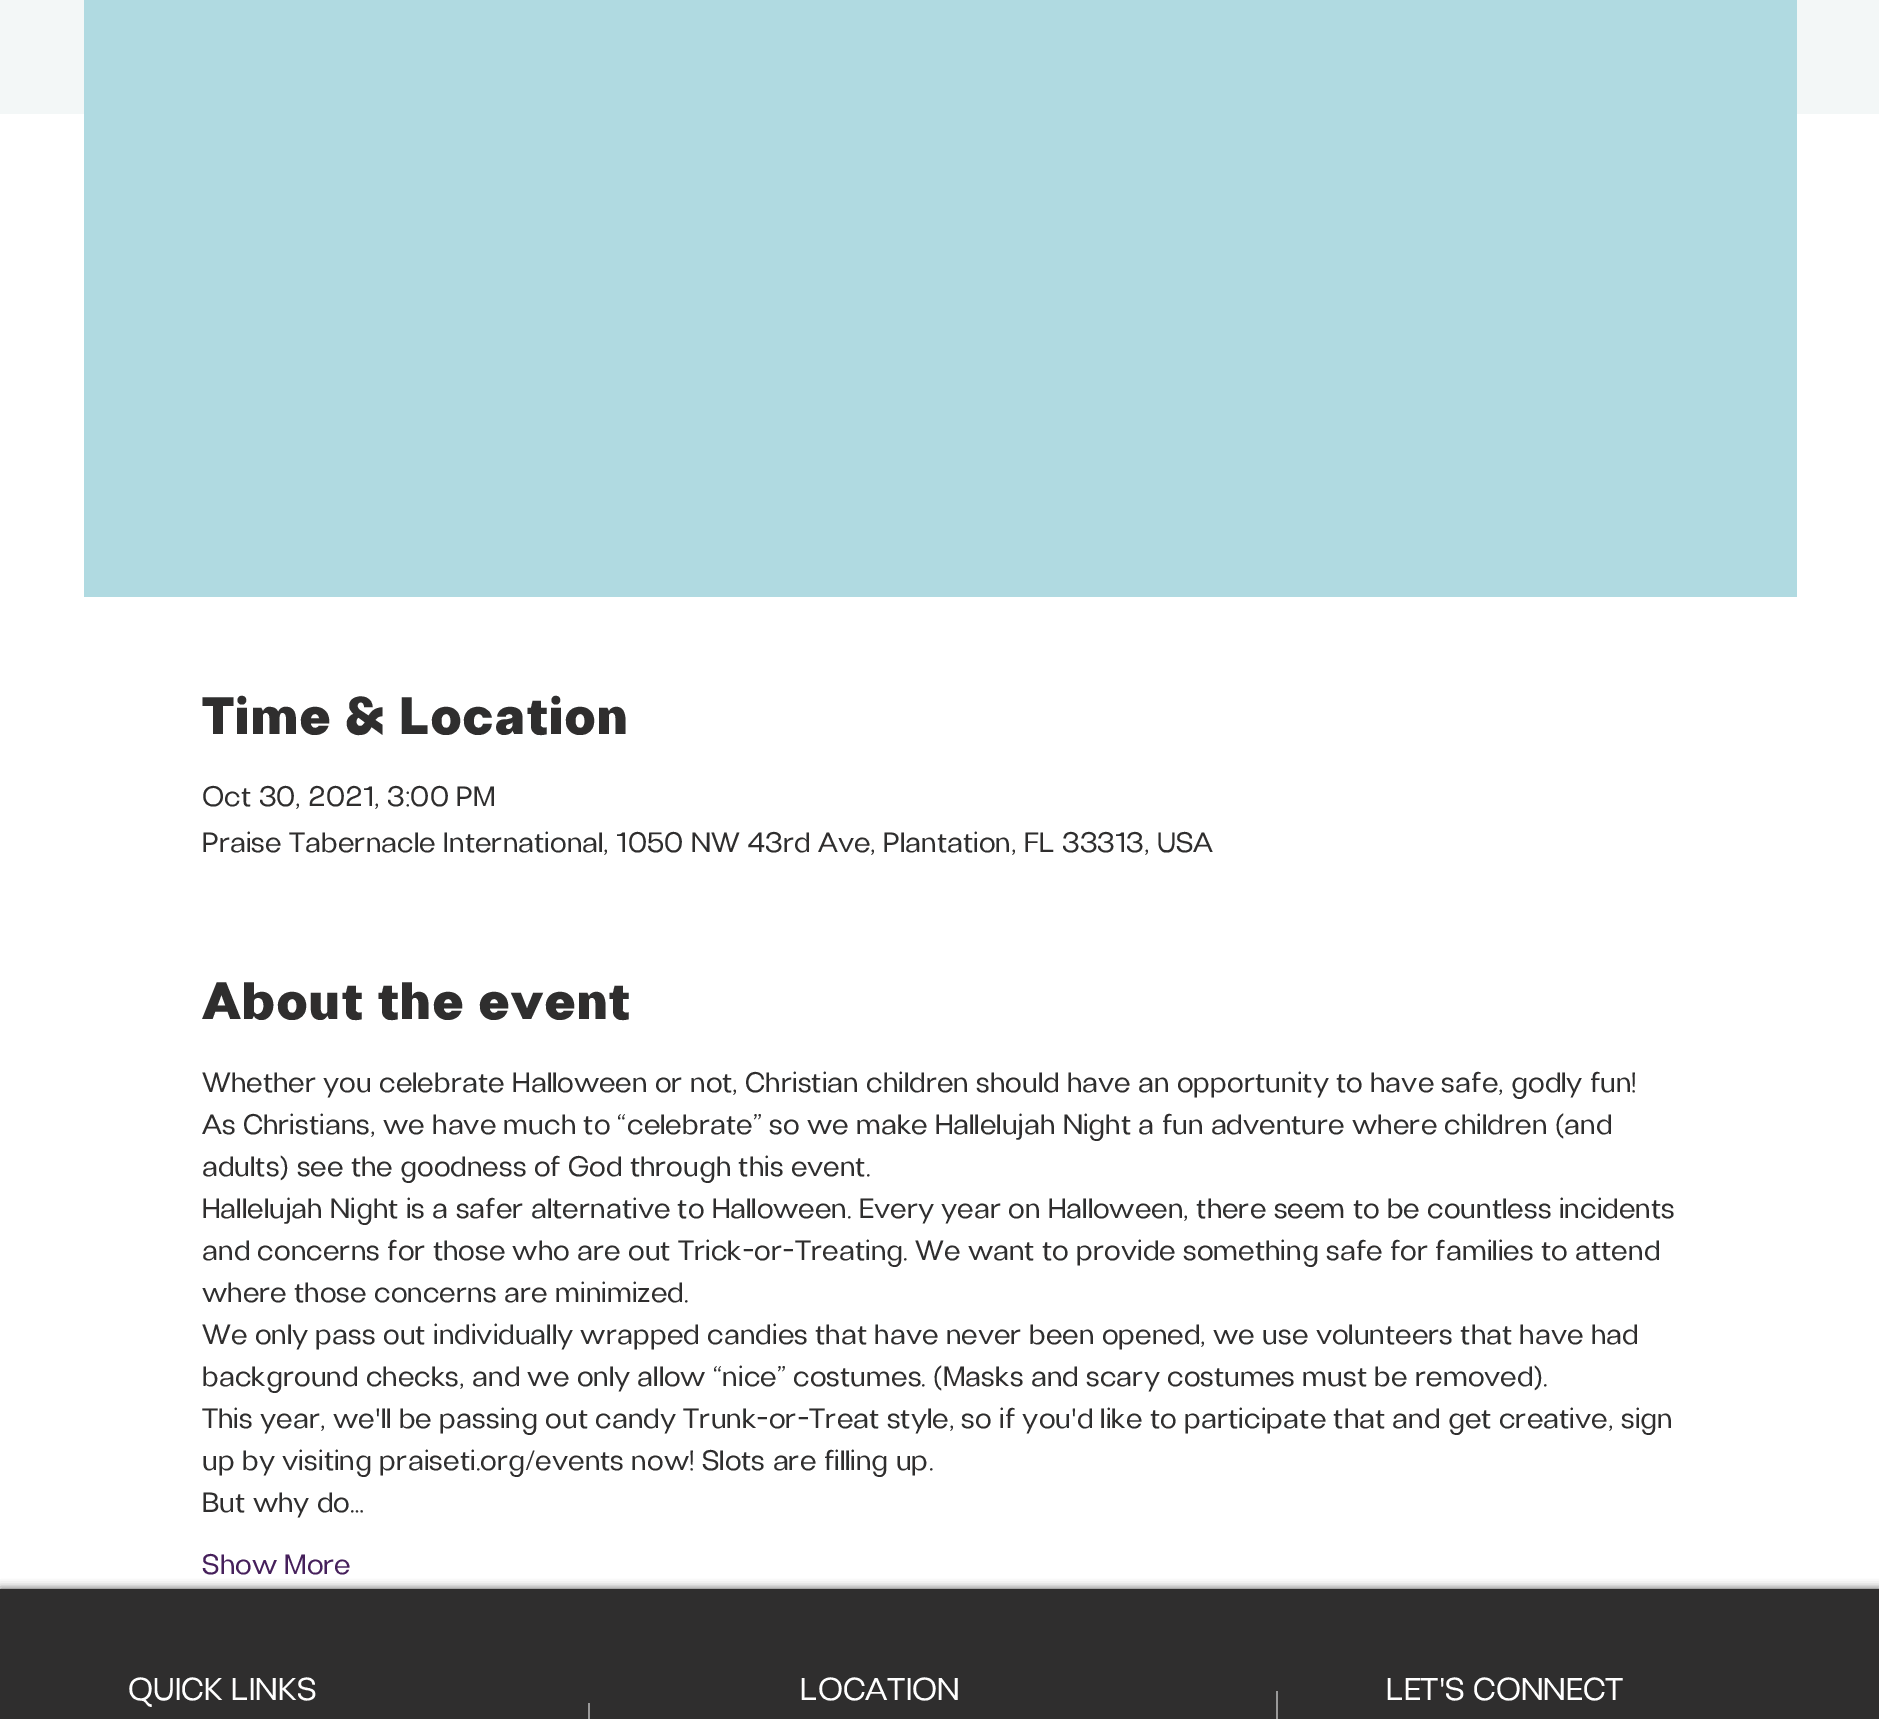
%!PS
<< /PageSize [1879 1719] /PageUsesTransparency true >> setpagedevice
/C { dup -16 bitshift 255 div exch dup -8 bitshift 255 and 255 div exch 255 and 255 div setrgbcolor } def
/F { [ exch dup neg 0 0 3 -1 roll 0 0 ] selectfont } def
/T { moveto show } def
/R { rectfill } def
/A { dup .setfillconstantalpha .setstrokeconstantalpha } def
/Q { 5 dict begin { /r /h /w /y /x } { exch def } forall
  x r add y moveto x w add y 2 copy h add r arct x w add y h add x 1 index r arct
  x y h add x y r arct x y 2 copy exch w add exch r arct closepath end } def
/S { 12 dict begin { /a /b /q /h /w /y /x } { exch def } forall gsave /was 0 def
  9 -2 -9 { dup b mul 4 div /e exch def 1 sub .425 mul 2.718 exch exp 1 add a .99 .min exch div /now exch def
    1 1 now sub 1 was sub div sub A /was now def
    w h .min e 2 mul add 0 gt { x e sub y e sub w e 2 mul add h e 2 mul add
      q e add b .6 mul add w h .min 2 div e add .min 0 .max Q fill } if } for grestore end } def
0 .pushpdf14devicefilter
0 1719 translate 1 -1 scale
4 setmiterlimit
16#FFFFFF C
0 0 1879 1719 R
16#F3F7F7 C
0 0 1879 114 R
16#B0DAE1 C
84 0 1713 597 R
/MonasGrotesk-Black 52.5 F
16#2F2E2E C
(Time & Location) 202 734 T
/MonasGrotesk-Regular 28 F
(Oct 30, 2021, 3:00 PM) 202 806 T
(Praise Tabernacle International, 1050 NW 43rd Ave, Plantation, FL 33313, USA) 202 852 T
/MonasGrotesk-Black 52.5 F
(About the event) 202 1019 T
/MonasGrotesk-Regular 28 F
(Whether you celebrate Halloween or not, Christian children should have an opportunity to have safe, godly fun!) 202 1092 T
(As Christians, we have much to “celebrate” so we make Hallelujah Night a fun adventure where children \(and) 202 1134 T
(adults\) see the goodness of God through this event.) 202 1176 T
(Hallelujah Night is a safer alternative to Halloween. Every year on Halloween, there seem to be countless incidents) 202 1218 T
(and concerns for those who are out Trick-or-Treating. We want to provide something safe for families to attend) 202 1260 T
(where those concerns are minimized.) 202 1302 T
(We only pass out individually wrapped candies that have never been opened, we use volunteers that have had) 202 1344 T
(background checks, and we only allow “nice” costumes. \(Masks and scary costumes must be removed\).) 202 1386 T
(This year, we'll be passing out candy Trunk-or-Treat style, so if you'd like to participate that and get creative, sign) 202 1428 T
(up by visiting praiseti.org/events now! Slots are filling up.) 202 1470 T
(But why do…) 202 1512 T
16#46205B C
(Show More) 202 1574 T
16#000000 C
0 1589 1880 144 0 4.5 .7 S
16#2F2E2E C
0 1589 1879 130 R
/MonasGrotesk-Regular 31.5 F
16#FFFFFF C
(QUICK LINKS) 128 1700 T
16#999999 C
588 1703 2 16 R
16#FFFFFF C
(LOCATION) 800 1700 T
16#999999 C
1276 1691 2 28 R
16#FFFFFF C
(LET'S CONNECT) 1386 1700 T
.poppdf14devicefilter showpage
